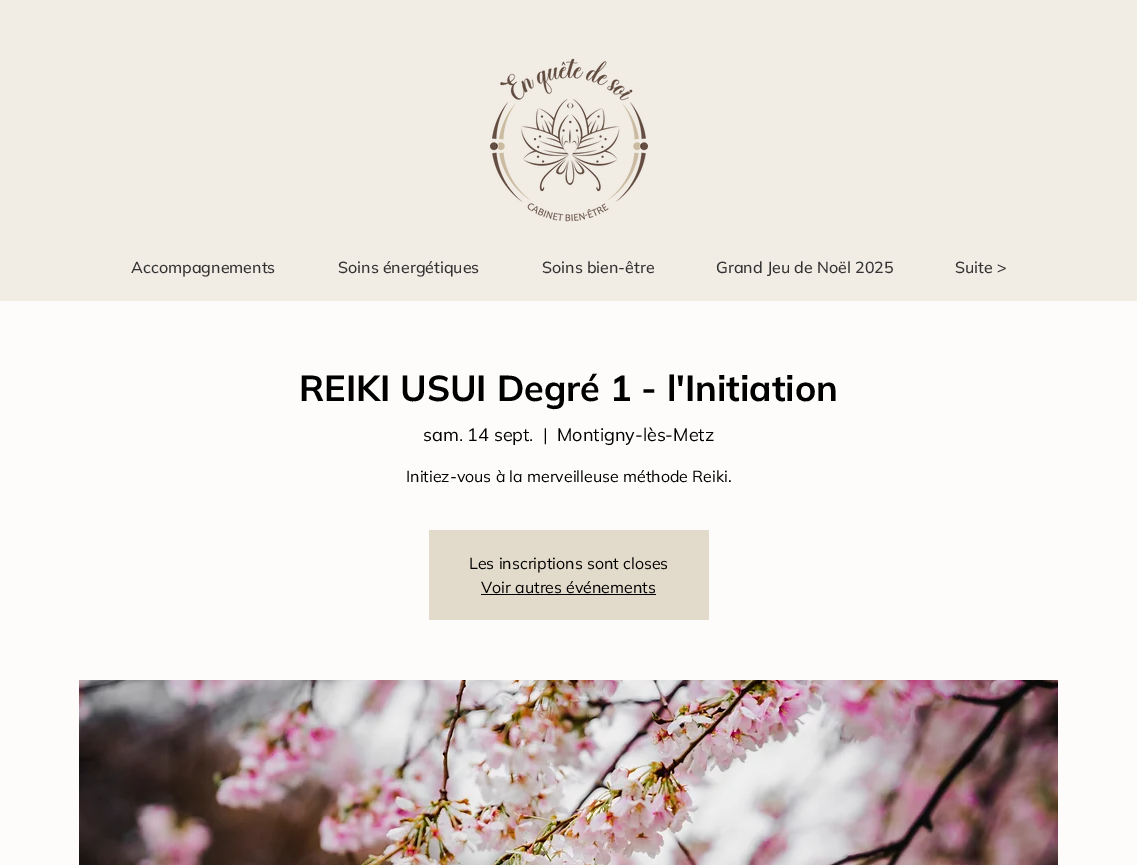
%!PS
<< /PageSize [1137 865] >> setpagedevice
/C { dup -16 bitshift 255 div exch dup -8 bitshift 255 and 255 div exch 255 and 255 div setrgbcolor } def
/F { [ exch dup neg 0 0 3 -1 roll 0 0 ] selectfont } def
/T { moveto show } def
/R { rectfill } def
/I { 5 dict begin { /h /w /y /x /name } { exch def } forall
  gsave x y translate w h scale
  w h 8 [w 0 0 h 0 0] name (r) file false 3 colorimage grestore end } def
0 865 translate 1 -1 scale
4 setmiterlimit
16#F1ECE4 C
0 0 1137 865 R
(1.rgb) 490 58 158 164 I
/Mulish-Medium 16 F
16#333333 C
(Accompagnements) 131 273 T
(Soins énergétiques) 338 273 T
(Soins bien-être) 542 273 T
(Grand Jeu de Noël 2025) 716 273 T
(Suite >) 955 273 T
16#FDFCFB C
0 301 1137 564 R
/Mulish-Bold 36 F
16#000000 C
(REIKI USUI Degré 1 - l'Initiation) 299 401 T
/Mulish-Regular 18 F
(sam. 14 sept.) 423 441 T
(|) 543 441 T
(Montigny-lès-Metz) 557 441 T
/Mulish-Regular 16 F
(Initiez-vous à la merveilleuse méthode Reiki.) 406 482 T
16#E2DACA C
429 530 280 90 R
16#000000 C
(Les inscriptions sont closes) 469 569 T
(Voir autres événements) 481 593 T
481 594 175 1 R
(2.rgb) 79 680 979 185 I
showpage
